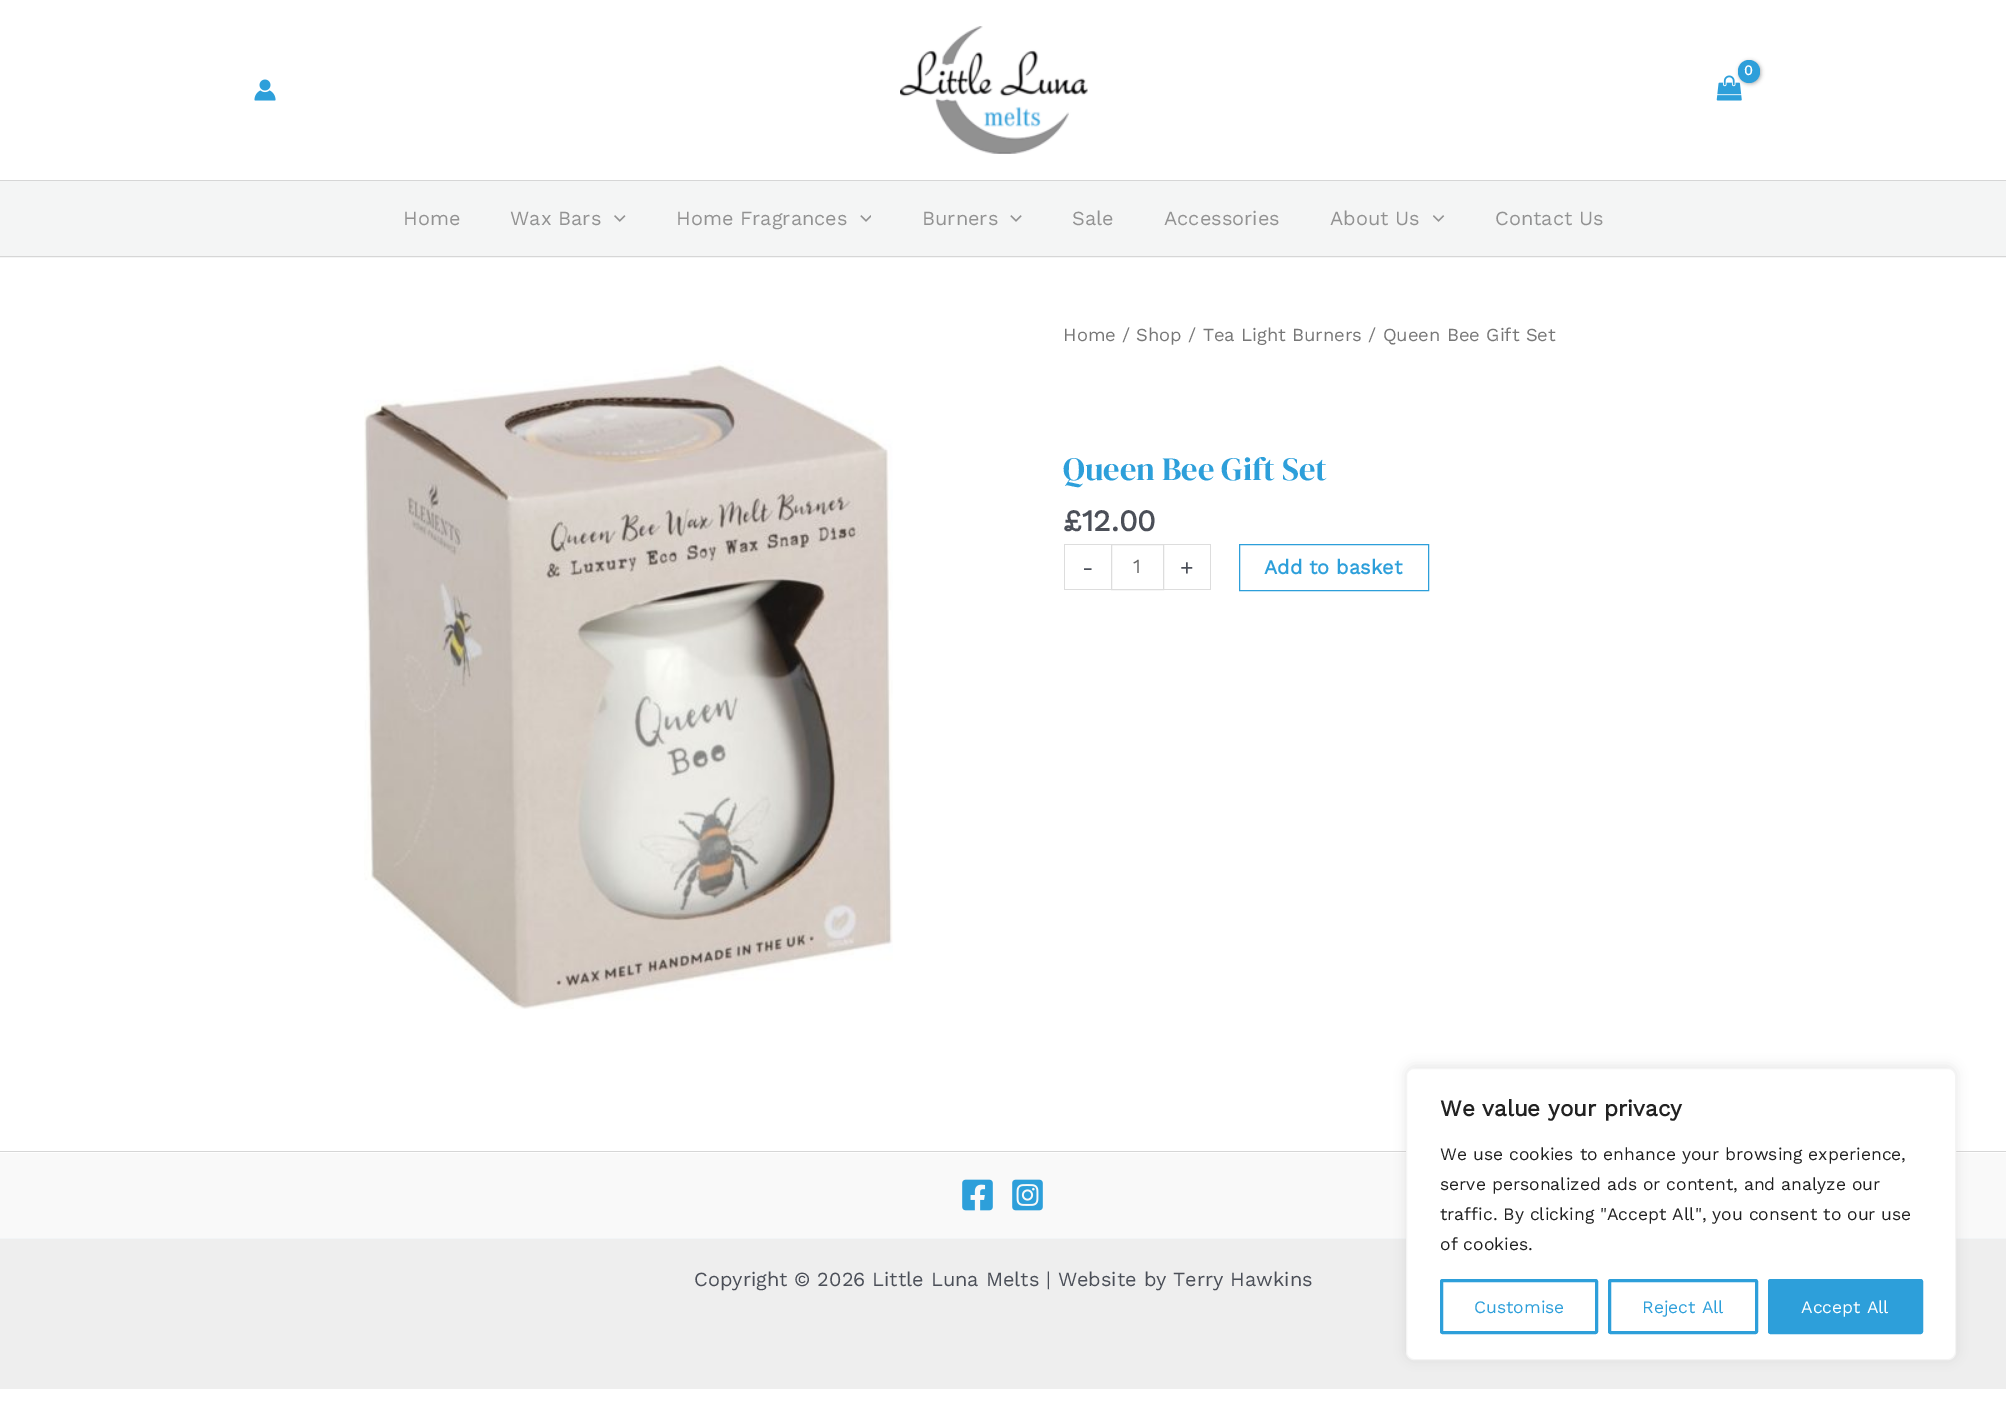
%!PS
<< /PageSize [2006 1410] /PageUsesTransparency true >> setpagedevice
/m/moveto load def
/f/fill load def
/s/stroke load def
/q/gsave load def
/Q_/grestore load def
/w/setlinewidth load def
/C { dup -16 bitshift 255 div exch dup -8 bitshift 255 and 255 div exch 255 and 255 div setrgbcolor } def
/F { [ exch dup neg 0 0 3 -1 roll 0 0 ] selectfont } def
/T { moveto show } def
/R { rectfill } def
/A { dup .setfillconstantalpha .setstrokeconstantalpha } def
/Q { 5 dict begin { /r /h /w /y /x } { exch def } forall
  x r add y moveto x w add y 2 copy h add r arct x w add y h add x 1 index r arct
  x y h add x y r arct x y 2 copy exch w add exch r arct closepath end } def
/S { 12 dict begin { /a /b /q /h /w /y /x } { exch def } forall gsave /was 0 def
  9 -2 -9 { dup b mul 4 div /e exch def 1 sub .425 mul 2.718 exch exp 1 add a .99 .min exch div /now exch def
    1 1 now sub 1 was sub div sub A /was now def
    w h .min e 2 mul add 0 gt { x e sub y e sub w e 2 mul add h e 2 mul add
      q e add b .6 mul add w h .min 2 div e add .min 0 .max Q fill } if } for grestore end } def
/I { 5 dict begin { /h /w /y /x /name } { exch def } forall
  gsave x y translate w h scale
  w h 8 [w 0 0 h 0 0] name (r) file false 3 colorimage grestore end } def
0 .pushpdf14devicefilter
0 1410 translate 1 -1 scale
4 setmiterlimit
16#FFFFFF C
0 0 2006 1410 R
16#D6D6D6 C
0 180 2006 1 R
(1.rgb) 900 26 188 128 I
(2.rgb) 1716 75 26 26 I
16#000000 C
1739 61 22 23 11 2 .3 S
16#2D9FDA C
1738 60 22 23 11 Q f
/WorkSans-Bold 14 F
16#FFFFFF C
1744 75 m -1 0 (0) ashow
(3.rgb) 254 79 22 22 I
16#F4F5F5 C
0 181 2006 77 R
16#D6D6D6 C
0 256 2006 1 R
/WorkSans-Regular 20 F
16#929292 C
(Home) 403 225 T
(Wax Bars) 510 225 T
(4.rgb) 614 215 12 7 I
(Home Fragrances) 676 225 T
(5.rgb) 860 215 11 7 I
(Burners) 922 225 T
(6.rgb) 1010 215 12 7 I
(Sale) 1072 225 T
(Accessories) 1164 225 T
(About Us) 1330 225 T
(7.rgb) 1433 215 12 7 I
(Contact Us) 1495 225 T
(8.rgb) 364 360 529 649 I
/WorkSans-Regular 18.4 F
16#777777 C
(Home / Shop / Tea Light Burners / Queen Bee Gift Set) 1063 341 T
/DMSerifDisplay-Regular 32.5 F
16#2D9FDA C
(Queen Bee Gift Set) 1063 480 T
/WorkSans-Bold 30 F
16#4B4F58 C
(£12.00) 1063 531 T
16#DDDDDD C
1064 544 47 1 R
1064 589 47 1 R
1064 544 1 46 R
/WorkSans-Regular 22.5 F
16#4B4F58 C
(-) 1082 575 T
16#DDDDDD C
1111.5 544.5 52 45 rectstroke
/WorkSans-Regular 20 F
16#666666 C
(1) 1133 573 T
16#DDDDDD C
1164 544 47 1 R
1210 544 1 46 R
1164 589 47 1 R
/WorkSans-Regular 22.5 F
16#4B4F58 C
(+) 1180 575 T
16#2D9FDA C
1239.5 544.5 189 46 rectstroke
/WorkSans-Bold 20 F
(Add to basket) 1264 574 T
16#F9F9F9 C
0 1153 2006 85 R
16#D6D6D6 C
0 1151 2006 1 R
(9.rgb) 962 1179 31 32 I
(10.rgb) 1012 1179 31 32 I
16#EEEEEE C
0 1239 2006 150 R
16#F2F5F7 C
0 1238 2006 1 R
/WorkSans-Regular 20 F
16#4B4F58 C
(Copyright © 2026 Little Luna Melts | Website by Terry Hawkins) 694 1286 T
16#ACABAB C
1406 1066 550 293 8 6 .3 S
16#FFFFFF C
1406.5 1068.5 549 291 7.5 Q q f Q_
16#F4F4F4 C
s
/WorkSans-Bold 22.5 F
16#212121 C
(We value your privacy) 1440 1116 T
/WorkSans-Regular 17.5 F
(We use cookies to enhance your browsing experience,) 1440 1160 T
(serve personalized ads or content, and analyze our) 1440 1190 T
(traffic. By clicking "Accept All", you consent to our use) 1440 1220 T
(of cookies.) 1440 1250 T
16#2D9FDA C
3 w
1441.5 1280.5 155 52 1 Q s
(Customise) 1474 1313 T
1609.5 1280.5 147 52 1 Q s
(Reject All) 1642 1313 T
1769.5 1280.5 152 52 1 Q q f Q_
s
16#FFFFFF C
(Accept All) 1801 1313 T
.poppdf14devicefilter showpage
